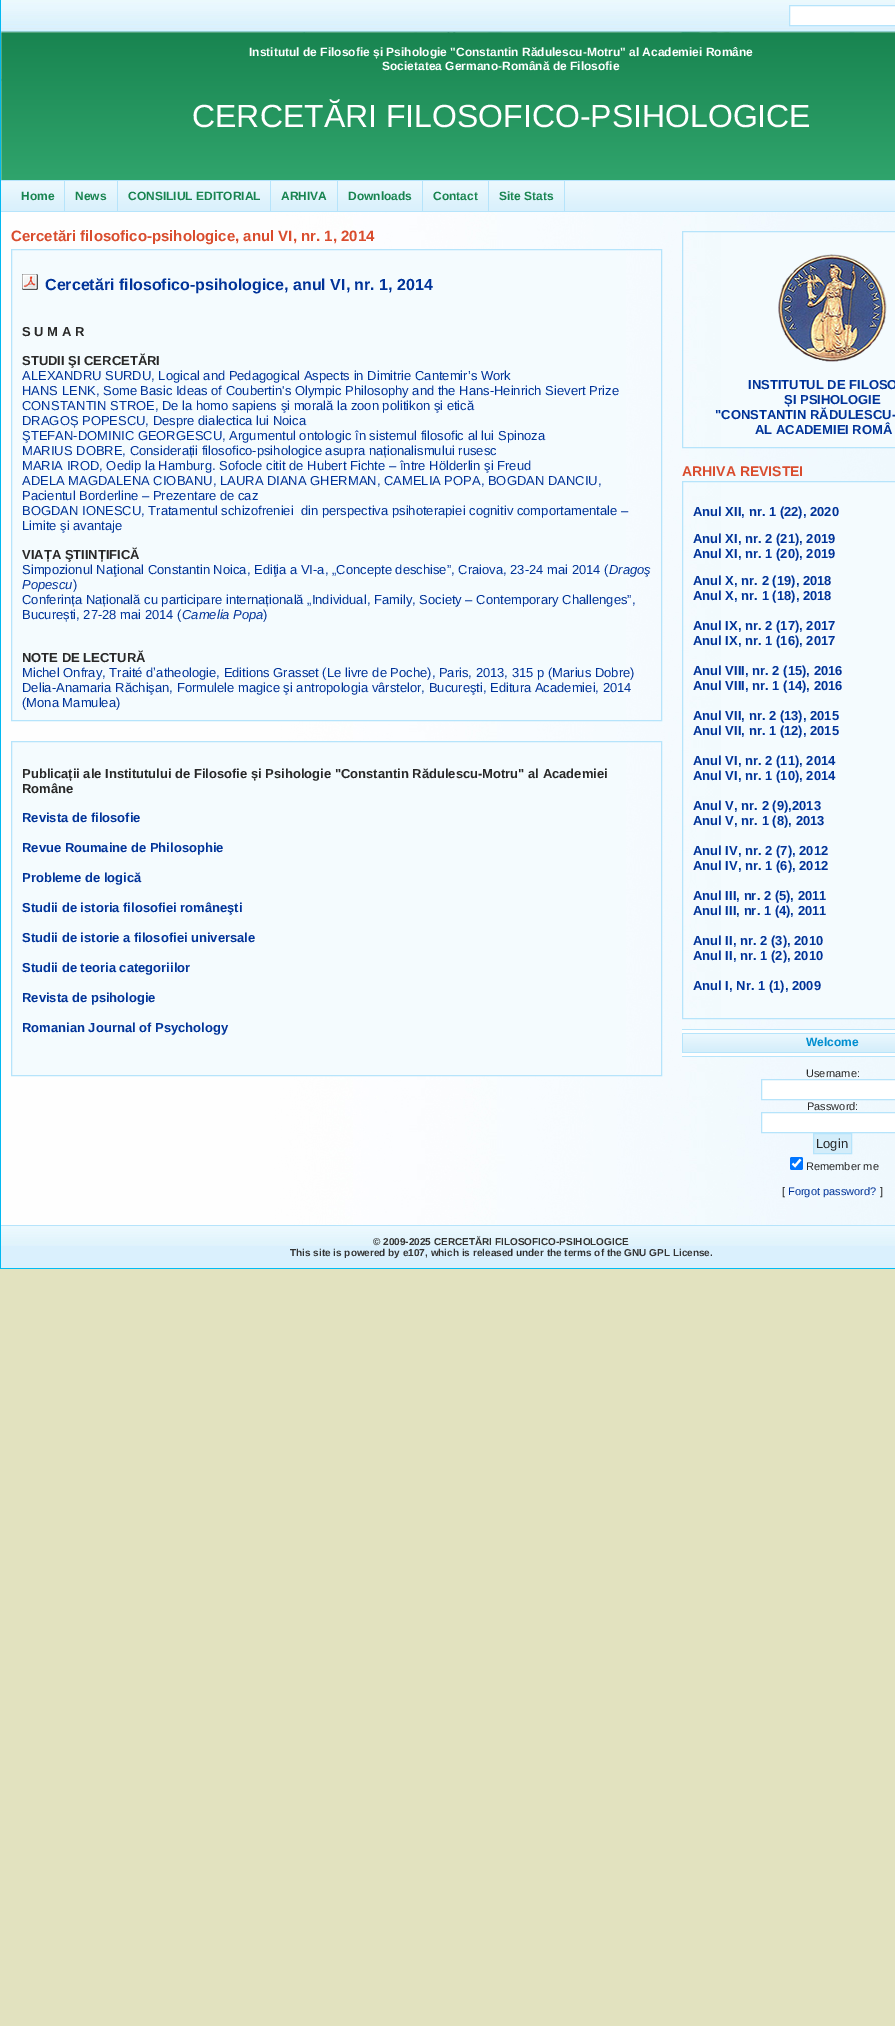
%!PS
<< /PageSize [895 2026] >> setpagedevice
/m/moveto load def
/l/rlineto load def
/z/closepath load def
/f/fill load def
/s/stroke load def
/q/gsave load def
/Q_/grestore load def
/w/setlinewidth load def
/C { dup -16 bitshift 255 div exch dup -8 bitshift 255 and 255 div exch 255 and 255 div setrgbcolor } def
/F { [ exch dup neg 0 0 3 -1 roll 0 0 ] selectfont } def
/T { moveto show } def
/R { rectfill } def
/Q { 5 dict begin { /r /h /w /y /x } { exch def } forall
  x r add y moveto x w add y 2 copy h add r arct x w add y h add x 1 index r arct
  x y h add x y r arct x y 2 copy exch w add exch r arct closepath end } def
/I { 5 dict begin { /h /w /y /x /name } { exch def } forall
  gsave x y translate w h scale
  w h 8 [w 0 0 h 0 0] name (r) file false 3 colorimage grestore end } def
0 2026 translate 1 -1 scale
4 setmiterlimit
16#E2E2BF C
0 0 895 2026 R
(1.rgb) 1 212 894 1013 I
16#02B9F1 C
0 0 1 1269 R
(2.rgb) 1 0 894 180 I
16#FFFFFF C
789.5 5.5 m 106 0 l 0 20 l -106 0 l z q f Q_
16#B6E4FB C
s
/LiberationSans-Bold 12 F
16#FFFFFF C
(Institutul de Filosofie și Psihologie "Constantin Rădulescu-Motru" al Academiei Române) 249 56 T
(Societatea Germano-Română de Filosofie) 382 70 T
/LiberationSans-Regular 32 F
(CERCETĂRI FILOSOFICO-PSIHOLOGICE) 192 127 T
(3.rgb) 1 181 894 30 I
16#B6E4FB C
1 180 894 1 R
1 211 894 1 R
/LiberationSans-Bold 12 F
16#188450 C
(Home) 21 200 T
16#B6E4FB C
64 181 1 30 R
16#188450 C
(News) 75 200 T
16#B6E4FB C
117 181 1 30 R
16#188450 C
(CONSILIUL EDITORIAL) 128 200 T
16#B6E4FB C
270 181 1 30 R
16#188450 C
(ARHIVA) 281 200 T
16#B6E4FB C
337 181 1 30 R
16#188450 C
(Downloads) 348 200 T
16#B6E4FB C
422 181 1 30 R
16#188450 C
(Contact) 433 200 T
16#B6E4FB C
488 181 1 30 R
16#188450 C
(Site Stats) 499 200 T
16#B6E4FB C
564 181 1 30 R
/LiberationSans-Bold 15 F
16#D94C2D C
(Cercetări filosofico-psihologice, anul VI, nr. 1, 2014) 11 241 T
16#F4FBFE C
12 250 614 470 R
16#B6E4FB C
11.5 249.5 650 471 rectstroke
(4.rgb) 22 274 16 16 I
/LiberationSans-Bold 16 F
16#003399 C
(Cercetări filosofico-psihologice, anul VI, nr. 1, 2014) 45 290 T
/LiberationSans-Bold 13 F
16#282828 C
(S U M A R) 22 336 T
(STUDII ŞI CERCETĂRI) 22 365 T
/LiberationSans-Regular 13 F
16#003399 C
(ALEXANDRU SURDU, Logical and Pedagogical Aspects in Dimitrie Cantemir’s Work) 22 380 T
(HANS LENK, Some Basic Ideas of Coubertin's Olympic Philosophy and the Hans-Heinrich Sievert Prize) 22 395 T
(CONSTANTIN STROE, De la homo sapiens şi morală la zoon politikon şi etică) 22 410 T
(DRAGOȘ POPESCU, Despre dialectica lui Noica) 22 425 T
(ŞTEFAN-DOMINIC GEORGESCU, Argumentul ontologic în sistemul filosofic al lui Spinoza) 22 440 T
(MARIUS DOBRE, Considerații filosofico-psihologice asupra naționalismului rusesc) 22 455 T
(MARIA IROD, Oedip la Hamburg. Sofocle citit de Hubert Fichte – între Hölderlin şi Freud) 22 470 T
(ADELA MAGDALENA CIOBANU, LAURA DIANA GHERMAN, CAMELIA POPA, BOGDAN DANCIU,) 22 485 T
(Pacientul Borderline – Prezentare de caz) 22 500 T
(BOGDAN IONESCU, Tratamentul schizofreniei  din perspectiva psihoterapiei cognitiv comportamentale –) 22 515 T
(Limite şi avantaje) 22 530 T
/LiberationSans-Bold 13 F
16#282828 C
(VIAȚA ŞTIINȚIFICĂ) 22 559 T
/LiberationSans-Regular 13 F
16#003399 C
(Simpozionul Naţional Constantin Noica, Ediţia a VI-a, „Concepte deschise”, Craiova, 23-24 mai 2014 \() 22 574 T
/LiberationSans-Italic 13 F
(Dragoş) 609 574 T
(Popescu) 22 589 T
/LiberationSans-Regular 13 F
(\)) 73 589 T
(Conferința Națională cu participare internațională „Individual, Family, Society – Contemporary Challenges”,) 22 604 T
(București, 27-28 mai 2014 \() 22 619 T
/LiberationSans-Italic 13 F
(Camelia Popa) 182 619 T
/LiberationSans-Regular 13 F
(\)) 263 619 T
/LiberationSans-Bold 13 F
16#282828 C
(NOTE DE LECTURĂ) 22 662 T
/LiberationSans-Regular 13 F
16#003399 C
(Michel Onfray, Traité dʼatheologie, Editions Grasset \(Le livre de Poche\), Paris, 2013, 315 p \(Marius Dobre\)) 22 677 T
(Delia-Anamaria Răchişan, Formulele magice şi antropologia vârstelor, Bucureşti, Editura Academiei, 2014) 22 692 T
(\(Mona Mamulea\)) 22 707 T
16#F4FBFE C
12 742 614 333 R
16#B6E4FB C
11.5 741.5 650 334 rectstroke
/LiberationSans-Bold 13 F
16#282828 C
(Publicații ale Institutului de Filosofie și Psihologie "Constantin Rădulescu-Motru" al Academiei) 22 778 T
(Române) 22 793 T
16#003399 C
(Revista de filosofie) 22 822 T
(Revue Roumaine de Philosophie) 22 852 T
(Probleme de logică) 22 882 T
(Studii de istoria filosofiei româneşti) 22 912 T
(Studii de istorie a filosofiei universale) 22 942 T
(Studii de teoria categoriilor) 22 972 T
(Revista de psihologie) 22 1002 T
(Romanian Journal of Psychology) 22 1032 T
16#F4FBFE C
721 232 174 215 R
16#B6E4FB C
682.5 231.5 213 216 rectstroke
(5.rgb) 778 254 109 108 I
16#003399 C
(INSTITUTUL DE FILOSO) 748 389 T
(ȘI PSIHOLOGIE) 784 404 T
("CONSTANTIN RĂDULESCU-) 715 419 T
(AL ACADEMIEI ROMÂ) 755 434 T
/LiberationSans-Bold 14 F
16#D94C2D C
(ARHIVA REVISTEI) 682 476 T
16#F4FBFE C
721 482 174 536 R
16#B6E4FB C
682.5 481.5 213 537 rectstroke
/LiberationSans-Bold 13 F
16#003399 C
(Anul XII, nr. 1 \(22\), 2020) 693 516 T
(Anul XI, nr. 2 \(21\), 2019) 693 543 T
(Anul XI, nr. 1 \(20\), 2019) 693 558 T
(Anul X, nr. 2 \(19\), 2018) 693 585 T
(Anul X, nr. 1 \(18\), 2018) 693 600 T
(Anul IX, nr. 2 \(17\), 2017) 693 630 T
(Anul IX, nr. 1 \(16\), 2017) 693 645 T
(Anul VIII, nr. 2 \(15\), 2016) 693 675 T
(Anul VIII, nr. 1 \(14\), 2016) 693 690 T
(Anul VII, nr. 2 \(13\), 2015) 693 720 T
(Anul VII, nr. 1 \(12\), 2015) 693 735 T
(Anul VI, nr. 2 \(11\), 2014) 693 765 T
(Anul VI, nr. 1 \(10\), 2014) 693 780 T
(Anul V, nr. 2 \(9\),2013) 693 810 T
(Anul V, nr. 1 \(8\), 2013) 693 825 T
(Anul IV, nr. 2 \(7\), 2012) 693 855 T
(Anul IV, nr. 1 \(6\), 2012) 693 870 T
(Anul III, nr. 2 \(5\), 2011) 693 900 T
(Anul III, nr. 1 \(4\), 2011) 693 915 T
(Anul II, nr. 2 \(3\), 2010) 693 945 T
(Anul II, nr. 1 \(2\), 2010) 693 960 T
(Anul I, Nr. 1 \(1\), 2009) 693 990 T
(6.rgb) 682 1029 213 28 I
/LiberationSans-Bold 12 F
16#008ED0 C
(Welcome) 806 1046 T
/LiberationSans-Regular 11 F
16#282828 C
(Username:) 806 1077 T
16#FFFFFF C
761.5 1079.5 m 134 0 l 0 20 l -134 0 l z q f Q_
16#B6E4FB C
s
16#282828 C
(Password:) 807 1110 T
16#FFFFFF C
761.5 1112.5 m 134 0 l 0 20 l -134 0 l z q f Q_
16#B6E4FB C
s
16#D3EDFA C
813.5 1133.5 m 38 0 l 0 20 l -38 0 l z q f Q_
16#B6E4FB C
s
/LiberationSans-Regular 13 F
16#282828 C
(Login) 816 1148 T
16#0075FF C
790 1157 13 13 2 Q f
16#FFFFFF C
2.1 w
792.5 1163.5 m 2.5 2.5 l 5.5 -6.5 l s
/LiberationSans-Regular 11 F
16#282828 C
(Remember me) 806 1170 T
([) 782 1195 T
16#003399 C
(Forgot password?) 788 1195 T
16#282828 C
(]) 880 1195 T
16#DAF0FD C
1 1246 894 22 R
(7.rgb) 1 1225 894 21 I
16#01BCF3 C
1 1268 894 1 R
/LiberationSans-Bold 10 F
16#333333 C
(© 2009-2025 CERCETĂRI FILOSOFICO-PSIHOLOGICE) 373 1245 T
(This site is powered by e107, which is released under the terms of the GNU GPL License.) 290 1256 T
showpage
